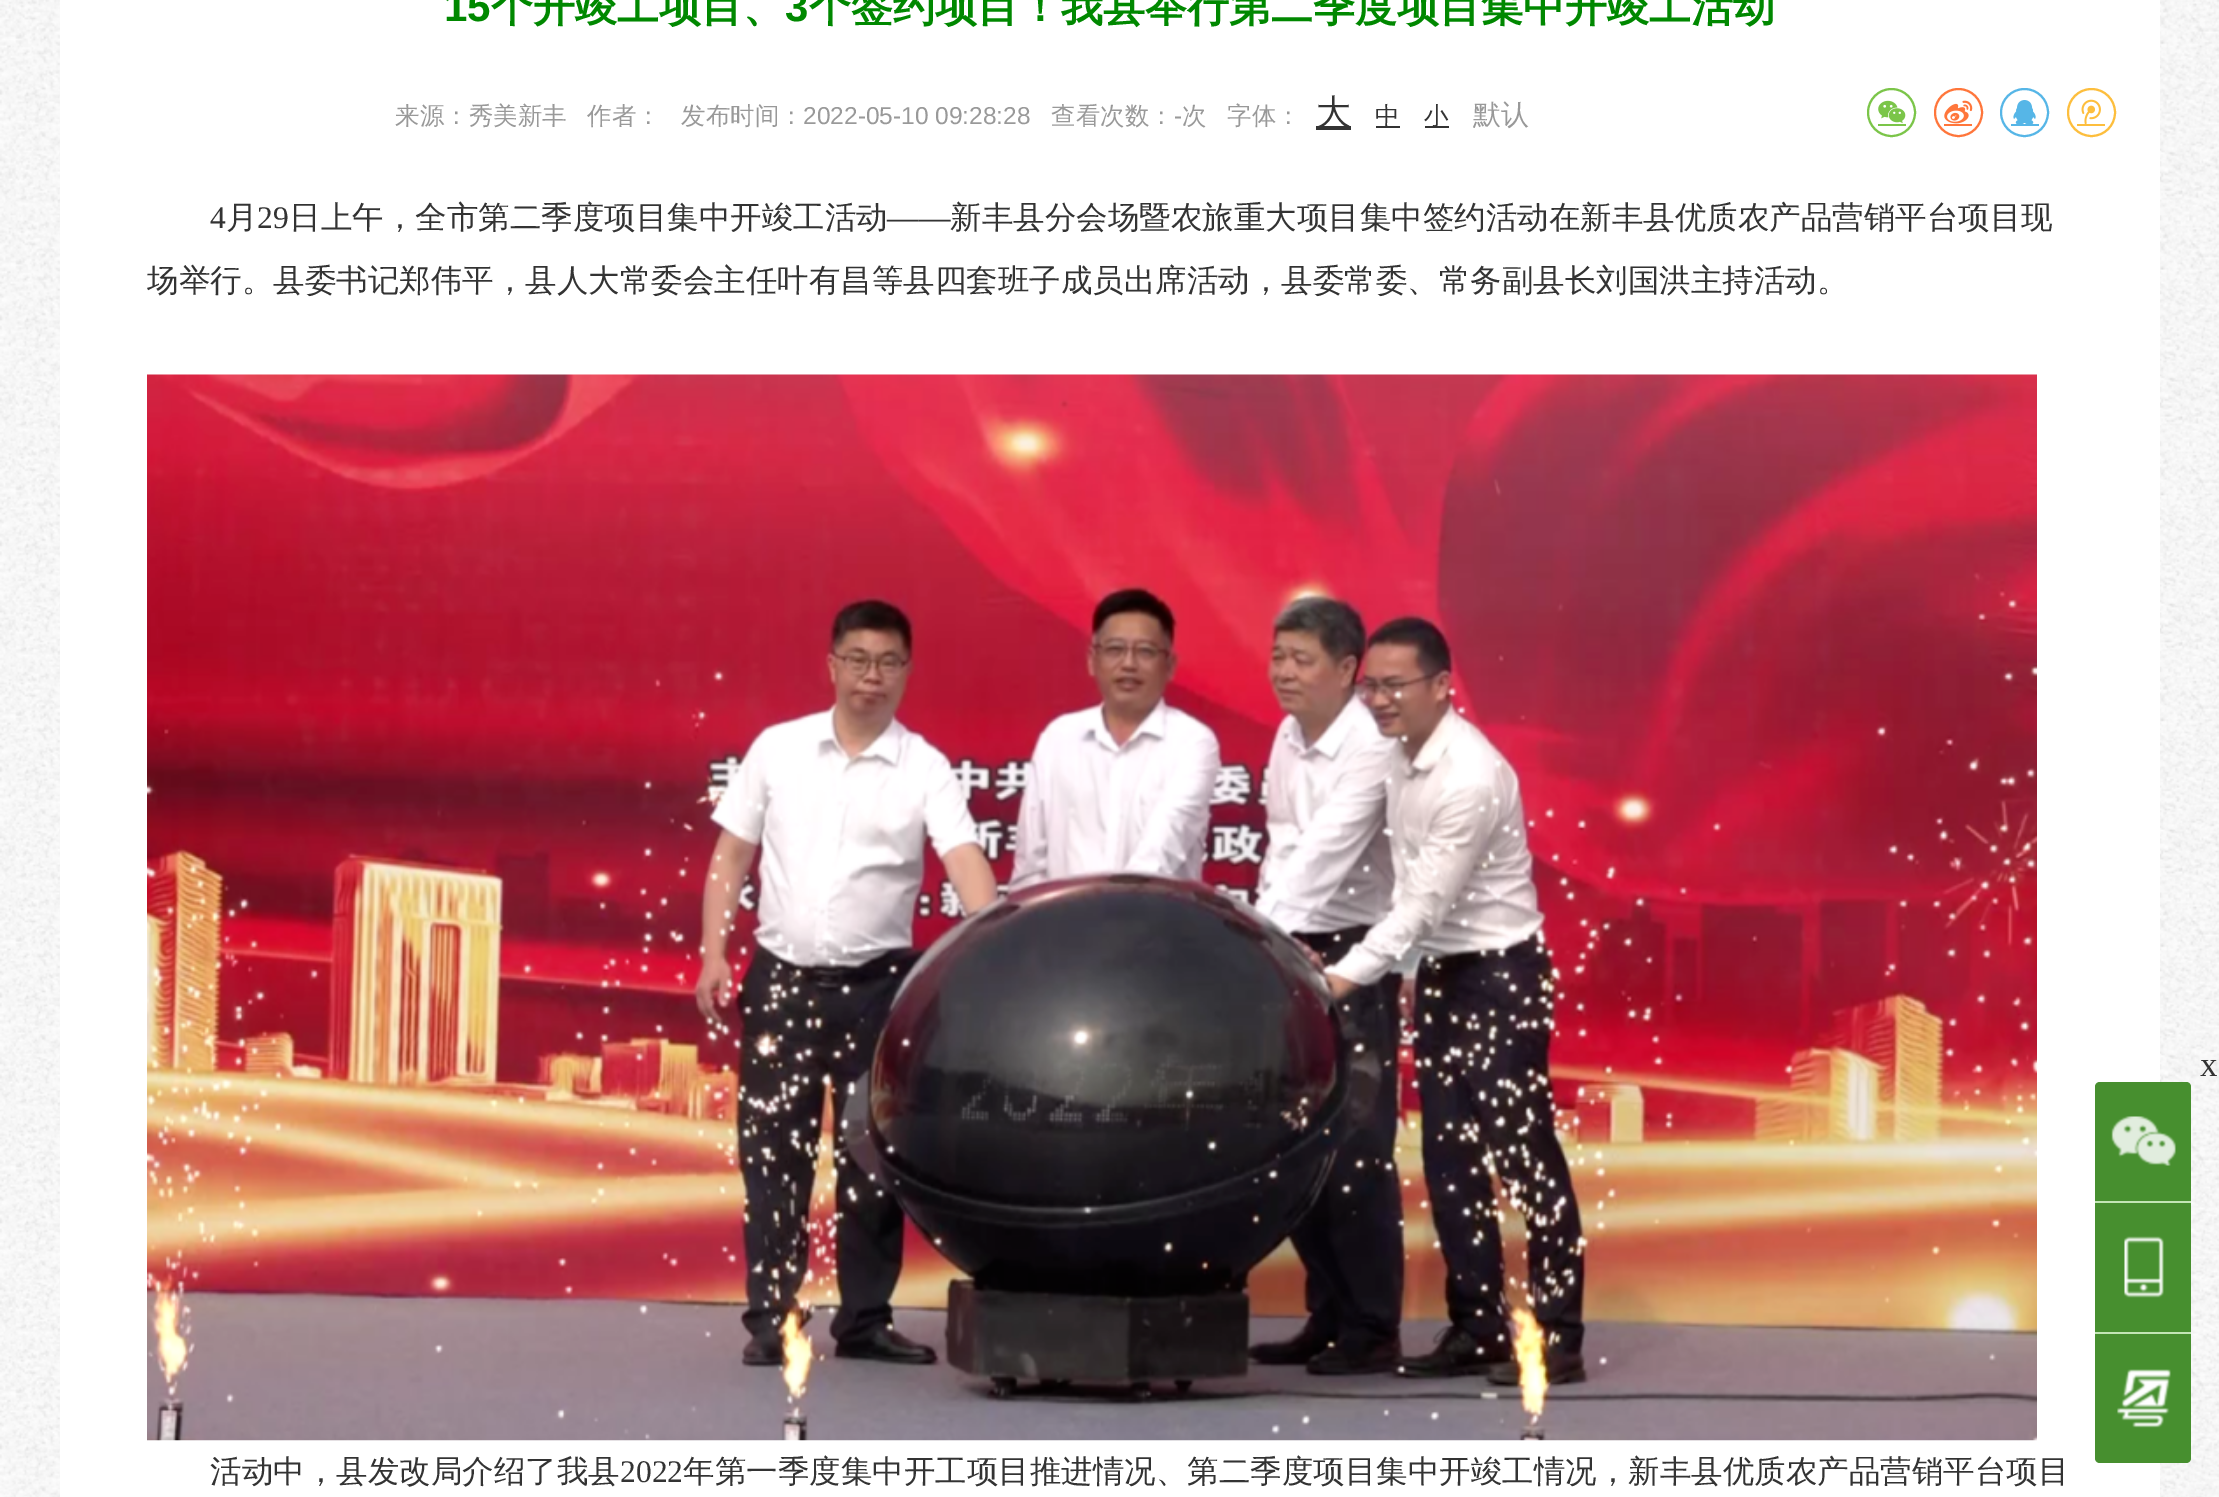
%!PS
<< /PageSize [2219 1497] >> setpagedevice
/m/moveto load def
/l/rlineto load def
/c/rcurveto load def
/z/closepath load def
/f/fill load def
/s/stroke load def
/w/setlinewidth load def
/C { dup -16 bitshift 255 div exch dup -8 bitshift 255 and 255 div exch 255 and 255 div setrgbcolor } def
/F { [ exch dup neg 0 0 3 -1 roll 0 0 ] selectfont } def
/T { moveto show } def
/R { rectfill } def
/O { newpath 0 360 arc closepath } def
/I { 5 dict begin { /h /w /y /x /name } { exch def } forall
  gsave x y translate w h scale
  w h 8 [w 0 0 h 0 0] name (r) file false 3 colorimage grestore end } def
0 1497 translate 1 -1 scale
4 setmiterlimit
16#FFFFFF C
0 0 2219 1497 R
(1.rgb) 0 0 2219 1497 I
60 0 2100 1497 R
/LiberationSans-Bold 42 F
16#008800 C
(15) 444 21 T
/WenQuanYiZenHei-Bold 42 F
(个开竣工项目、) 491 21 T
/LiberationSans-Bold 42 F
(3) 785 21 T
/WenQuanYiZenHei-Bold 42 F
(个签约项目！我县举行第二季度项目集中开竣工活动) 809 21 T
/WenQuanYiZenHei-Medium 24.5 F
16#999999 C
(来源：秀美新丰) 395 124 T
(作者：) 587 124 T
(发布时间：) 681 124 T
/LiberationSans-Regular 24.5 F
(2022-05-10 09:28:28) 803 124 T
/WenQuanYiZenHei-Medium 24.5 F
(查看次数：) 1051 124 T
/LiberationSans-Regular 24.5 F
(-) 1174 124 T
/WenQuanYiZenHei-Medium 24.5 F
(次) 1182 124 T
(字体：) 1227 124 T
16#333333 C
1316 126 35 4 R
/WenQuanYiZenHei-Medium 35 F
(大) 1316 124 T
1376 126 24 2 R
/WenQuanYiZenHei-Medium 24.5 F
(中) 1375 124 T
1425 126 24 2 R
(小) 1424 124 T
/WenQuanYiZenHei-Medium 28 F
16#999999 C
(默认) 1473 124 T
16#7BC549 C
2 w
1891.5 112.5 23.5 O s
(2.rgb) 1878 100 28 24 I
1878 124 28 2 R
16#FF763B C
1958.5 112.5 23.5 O s
(3.rgb) 1944 100 29 24 I
1944 124 28 2 R
16#56B6E7 C
2024.5 112.5 23.5 O s
(4.rgb) 2013 100 23 24 I
2011 124 28 2 R
16#FDBE3D C
2091.5 112.5 23.5 O s
(5.rgb) 2081 99 20 25 I
2077 124 28 2 R
/LiberationSerif-Regular 31.5 F
16#333333 C
(4) 210 228 T
/WenQuanYiZenHei-Medium 31.5 F
(月) 226 228 T
/LiberationSerif-Regular 31.5 F
(29) 257 228 T
/WenQuanYiZenHei-Medium 31.5 F
(日上午，全市第二季度项目集中开竣工活动) 289 228 T
/LiberationSerif-Regular 31.5 F
(——) 887 228 T
/WenQuanYiZenHei-Medium 31.5 F
(新丰县分会场暨农旅重大项目集中签约活动在新丰县优质农产品营销平台项目现) 950 228 T
(场举行。县委书记郑伟平，县人大常委会主任叶有昌等县四套班子成员出席活动，县委常委、常务副县长刘国洪主持活动。) 147 291 T
(6.rgb) 147 374 1890 1067 I
(活动中，县发改局介绍了我县) 210 1482 T
/LiberationSerif-Regular 31.5 F
(2022) 620 1482 T
/WenQuanYiZenHei-Medium 31.5 F
(年第一季度集中开工项目推进情况、第二季度项目集中开竣工情况，新丰县优质农产品营销平台项目) 683 1482 T
/LiberationSerif-Regular 35 F
(x) 2200 1076 T
16#478F2F C
2100 1082 m 86 0 l 3 0 5 2 5 5 c 0 114 l -96 0 l 0 -114 l 0 -3 2 -5 5 -5 c z f
(7.rgb) 2111 1116 65 50 I
2095 1203 96 129 R
16#C3E6B5 C
2095 1201 96 2 R
(8.rgb) 2124 1236 40 62 I
16#478F2F C
2095 1332 m 96 0 l 0 126 l 0 3 -2 5 -5 5 c -86 0 l -3 0 -5 -2 -5 -5 c z f
16#C3E6B5 C
2095 1332 96 2 R
(9.rgb) 2117 1369 54 59 I
showpage
